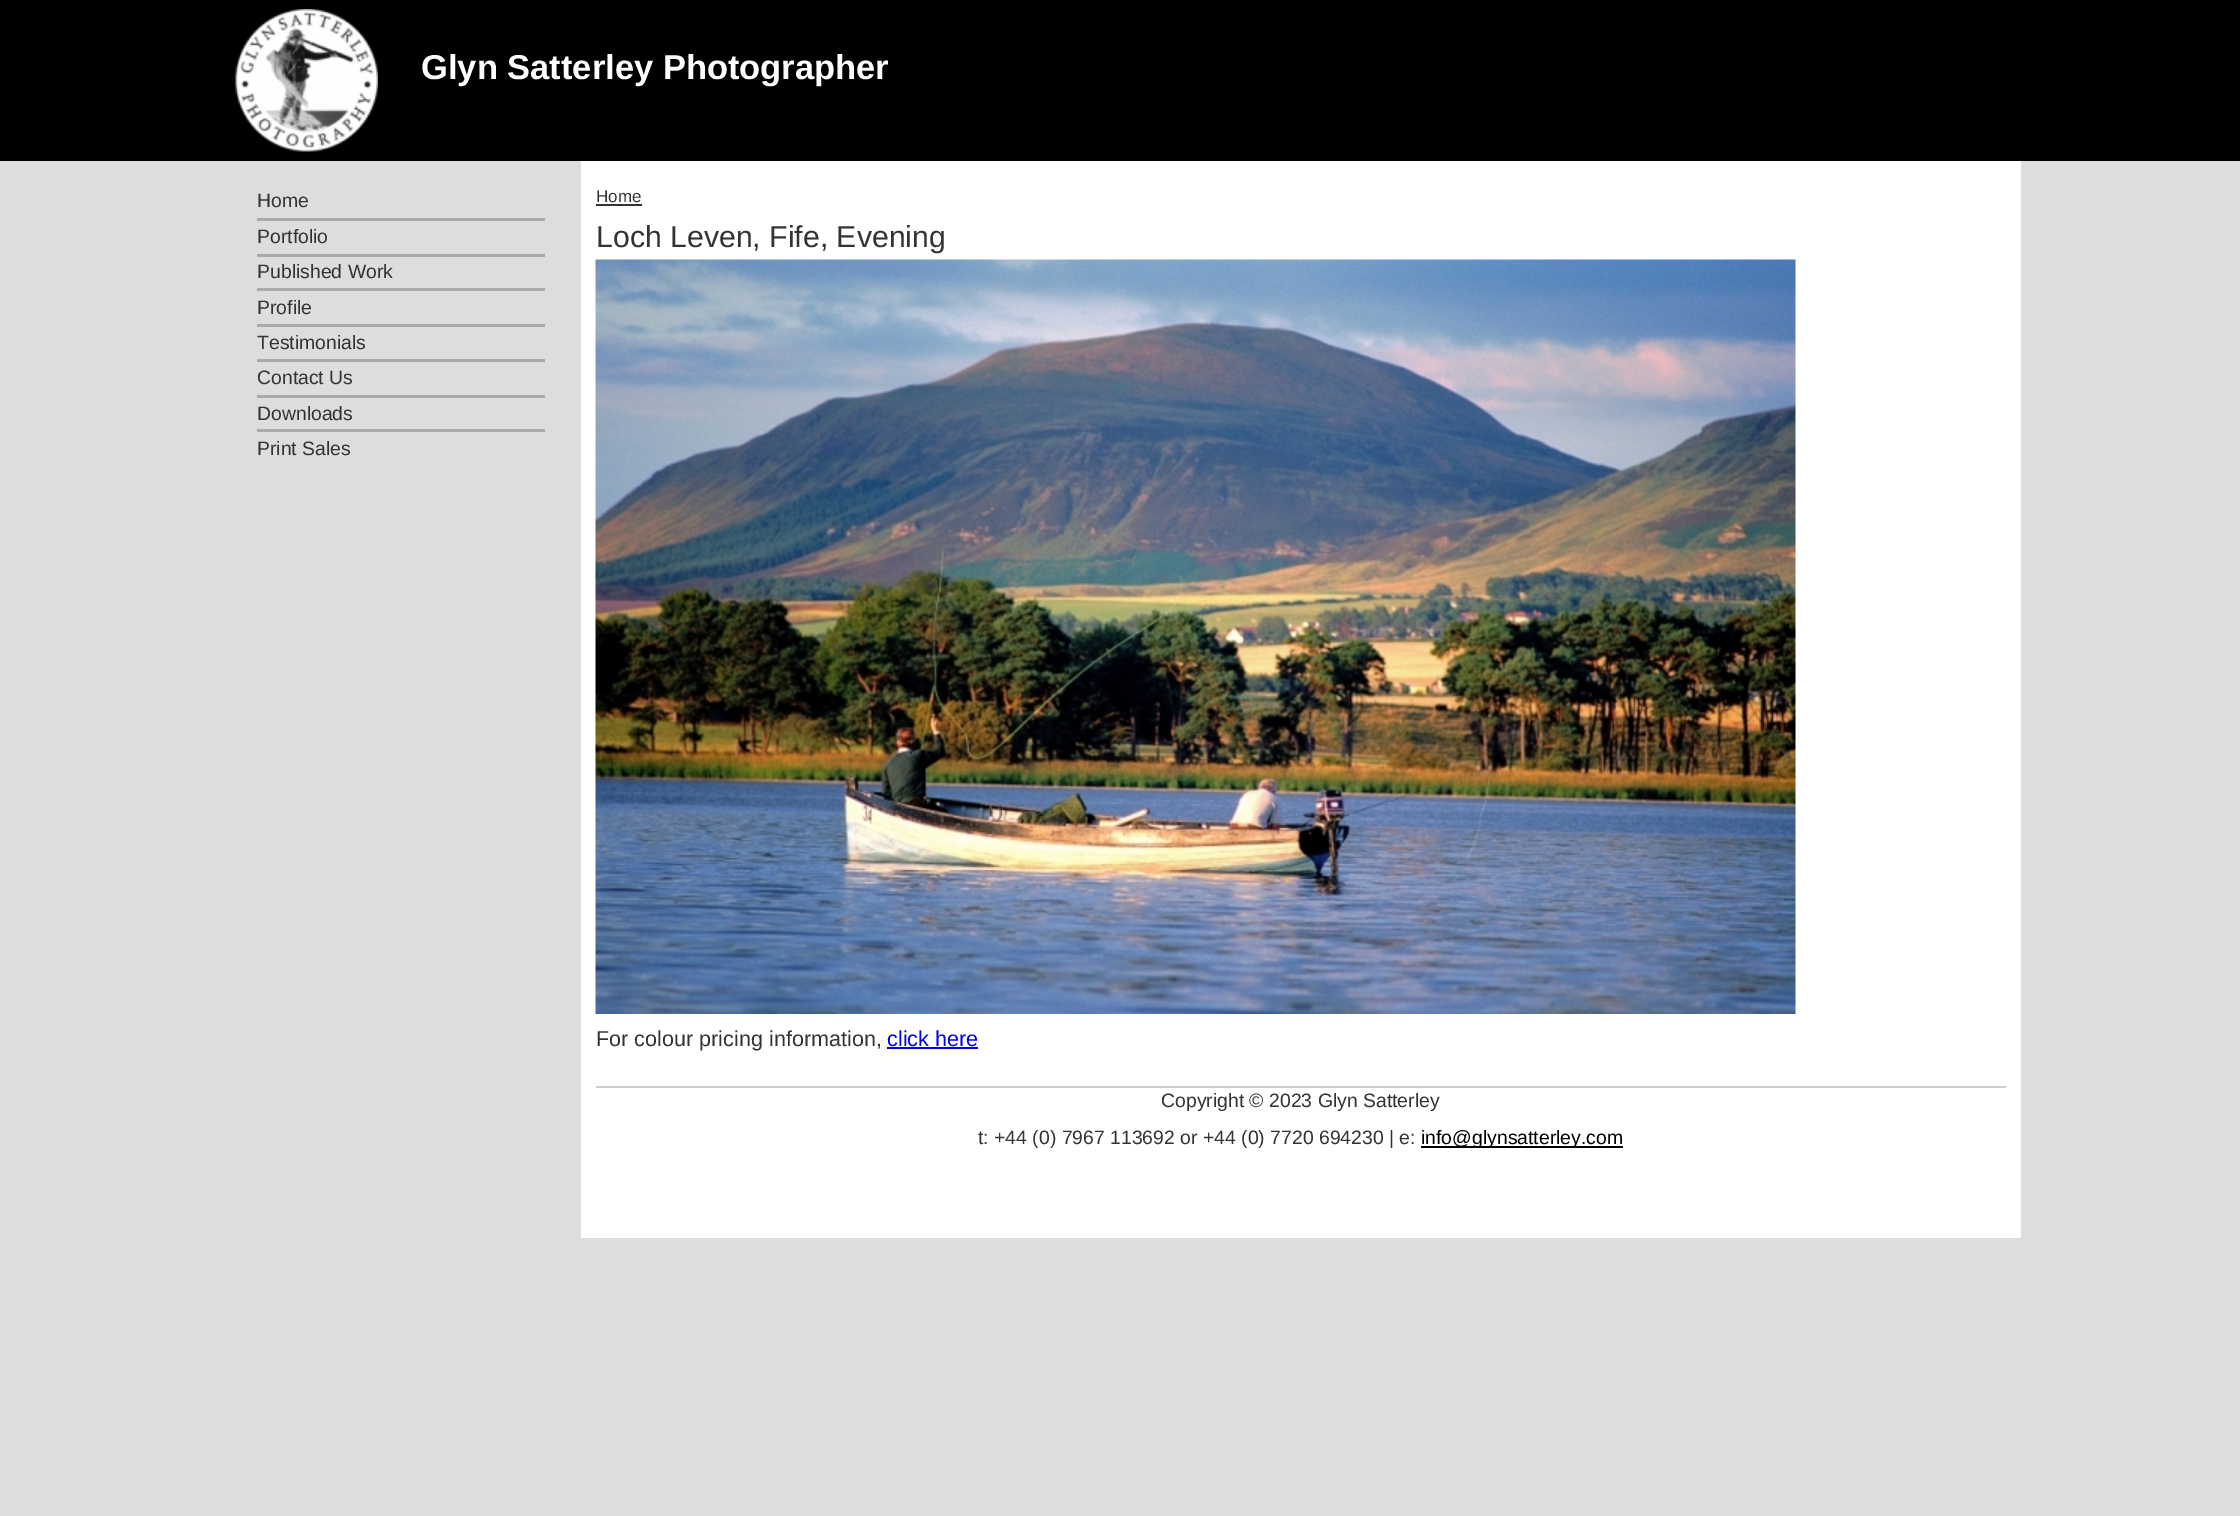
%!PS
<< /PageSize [2240 1516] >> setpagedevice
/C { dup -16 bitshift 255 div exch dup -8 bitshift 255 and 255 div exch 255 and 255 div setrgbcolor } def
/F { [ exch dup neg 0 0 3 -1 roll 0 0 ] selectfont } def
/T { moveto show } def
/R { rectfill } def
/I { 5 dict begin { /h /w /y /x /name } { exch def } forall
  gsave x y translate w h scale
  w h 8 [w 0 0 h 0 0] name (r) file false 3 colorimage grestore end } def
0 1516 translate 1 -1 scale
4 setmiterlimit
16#DDDDDD C
0 0 2240 1516 R
16#000000 C
0 0 2240 161 R
(1.rgb) 235 9 143 143 I
/LiberationSans-Bold 34.5 F
16#FFFFFF C
(Glyn Satterley Photographer) 421 79 T
16#AAAAAA C
257 218 288 3 R
/LiberationSans-Regular 19.4 F
16#333333 C
(Home) 257 207 T
16#AAAAAA C
257 254 288 3 R
16#333333 C
(Portfolio) 257 243 T
16#AAAAAA C
257 288 288 3 R
16#333333 C
(Published Work) 257 278 T
16#AAAAAA C
257 324 288 3 R
16#333333 C
(Profile) 257 314 T
16#AAAAAA C
257 359 288 3 R
16#333333 C
(Testimonials) 257 349 T
16#AAAAAA C
257 395 288 3 R
16#333333 C
(Contact Us) 257 384 T
16#AAAAAA C
257 429 288 3 R
16#333333 C
(Downloads) 257 420 T
(Print Sales) 257 455 T
16#FFFFFF C
581 161 1440 1077 R
/LiberationSans-Regular 17 F
16#333333 C
(Home) 596 202 T
596 204 46 2 R
/LiberationSans-Regular 30.25 F
(Loch Leven, Fife, Evening) 596 247 T
(2.rgb) 595 259 1201 755 I
/LiberationSans-Regular 21.6 F
(For colour pricing information,) 596 1046 T
16#0000EE C
(click here) 887 1046 T
887 1047 91 2 R
16#CCCCCC C
596 1086 1410 2 R
/LiberationSans-Regular 19.4 F
16#333333 C
(Copyright © 2023 Glyn Satterley) 1161 1107 T
(t: +44 \(0\) 7967 113692 or +44 \(0\) 7720 694230 | e:) 978 1144 T
16#000000 C
1421 1146 202 2 R
(info@glynsatterley.com) 1421 1144 T
showpage
